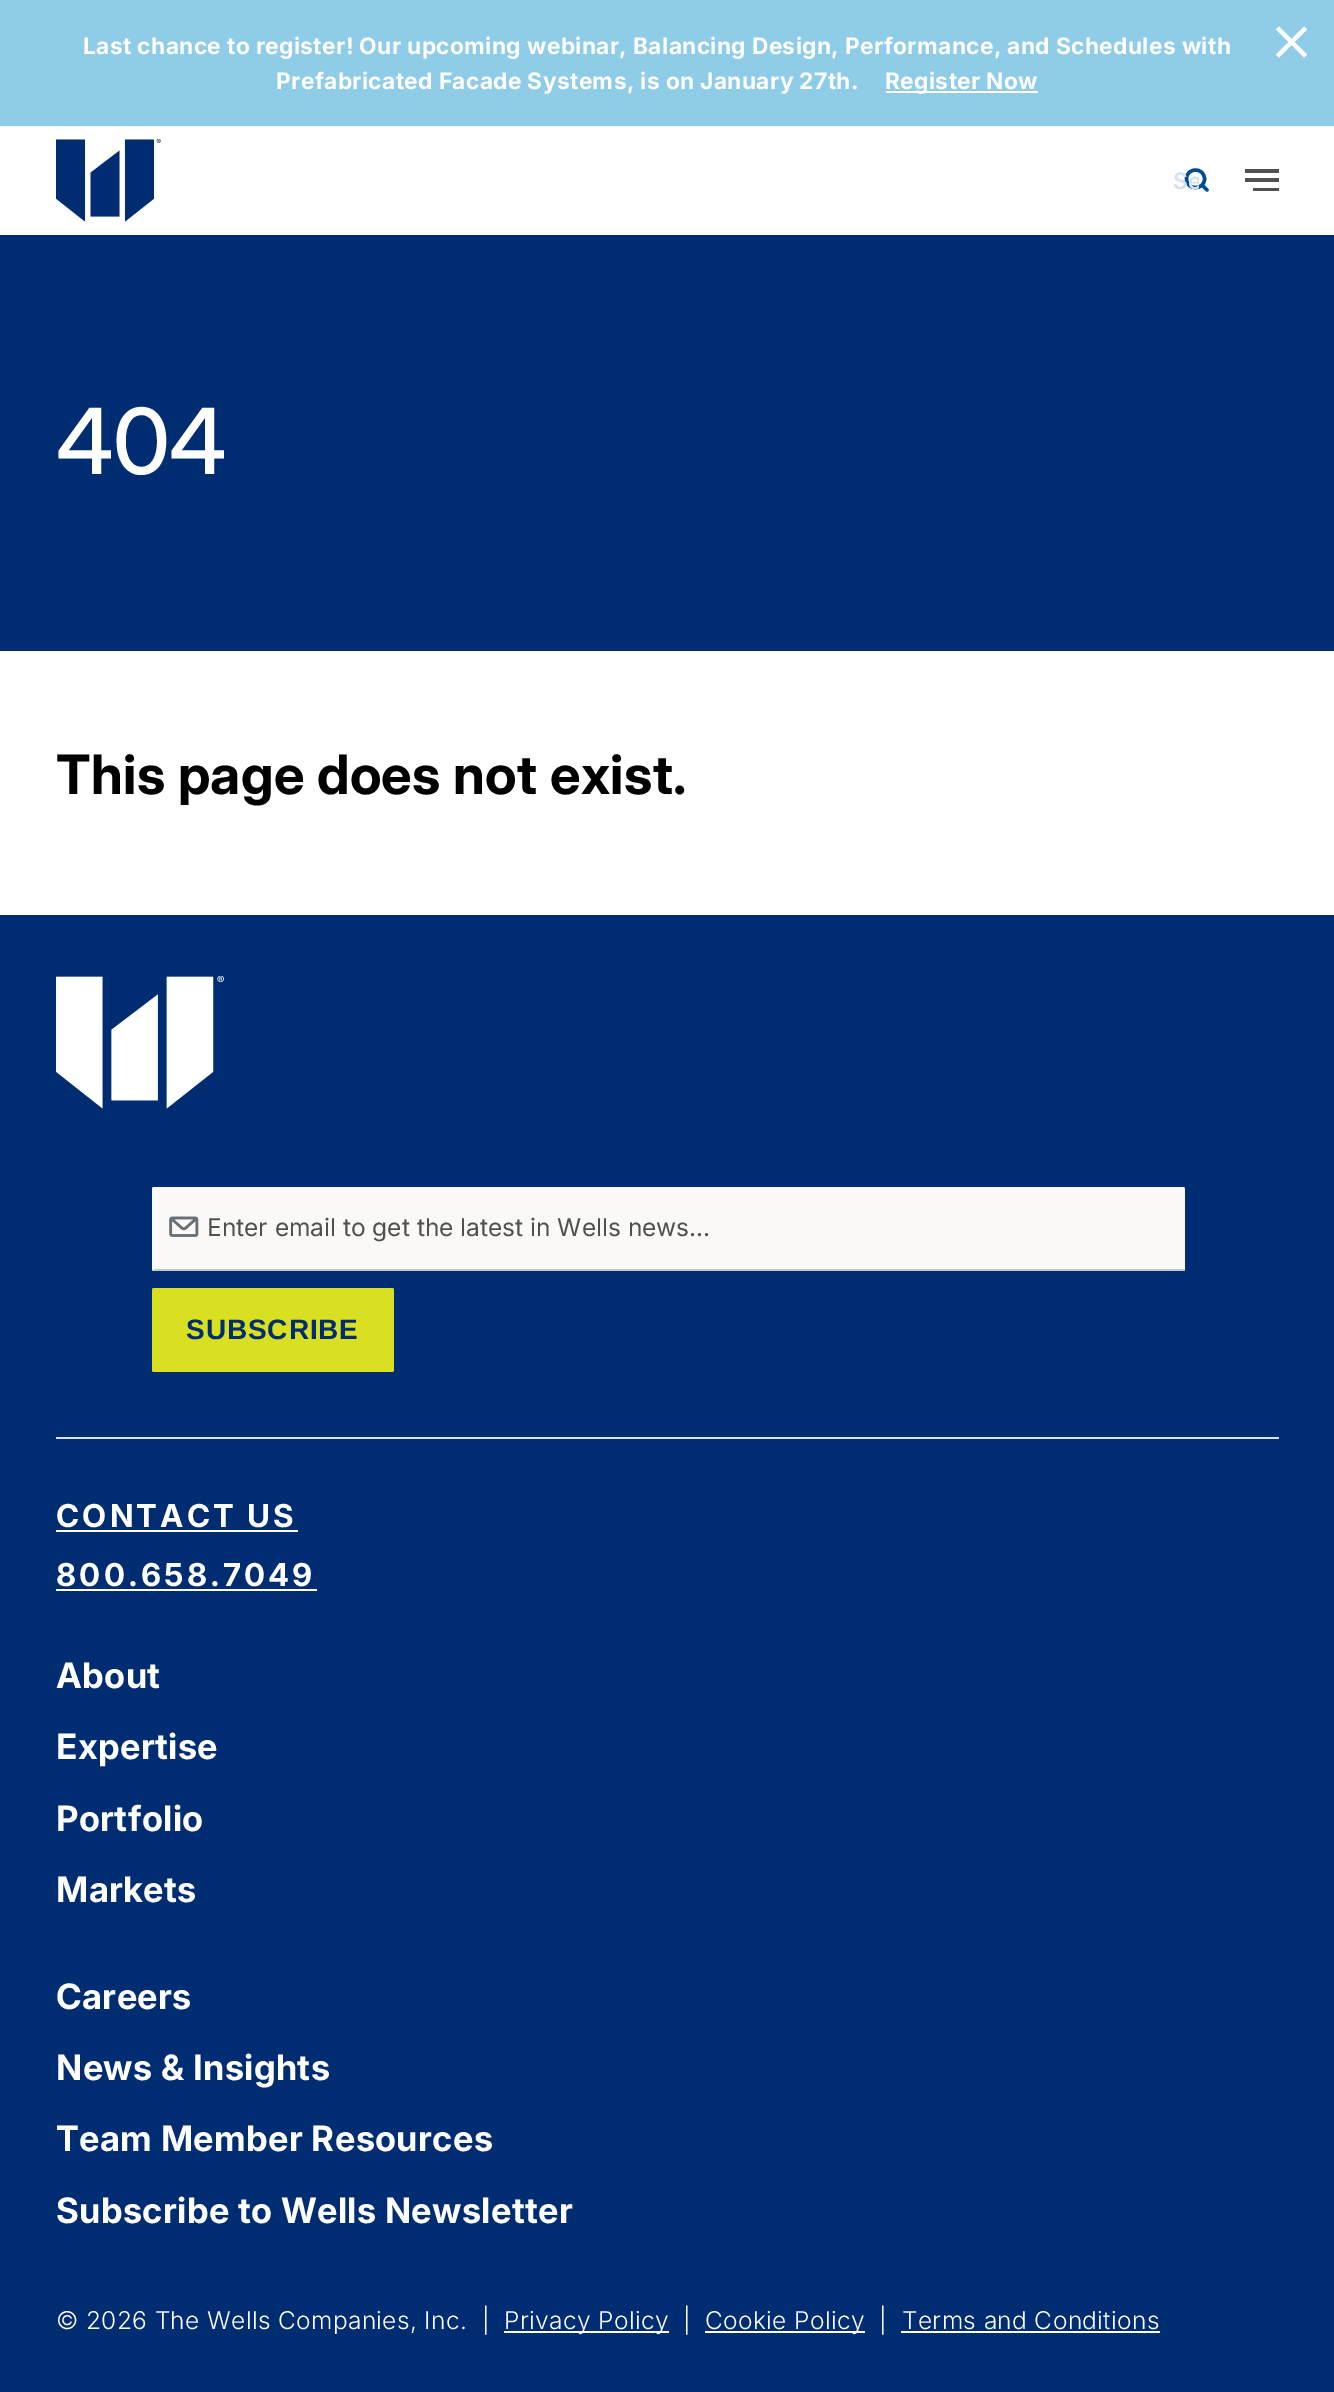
%!PS
<< /PageSize [1334 2392] >> setpagedevice
/m/moveto load def
/l/rlineto load def
/c/rcurveto load def
/z/closepath load def
/f/fill load def
/s/stroke load def
/q/gsave load def
/Q_/grestore load def
/w/setlinewidth load def
/C { dup -16 bitshift 255 div exch dup -8 bitshift 255 and 255 div exch 255 and 255 div setrgbcolor } def
/F { [ exch dup neg 0 0 3 -1 roll 0 0 ] selectfont } def
/T { moveto show } def
/R { rectfill } def
/Q { 5 dict begin { /r /h /w /y /x } { exch def } forall
  x r add y moveto x w add y 2 copy h add r arct x w add y h add x 1 index r arct
  x y h add x y r arct x y 2 copy exch w add exch r arct closepath end } def
/I { 5 dict begin { /h /w /y /x /name } { exch def } forall
  gsave x y translate w h scale
  w h 8 [w 0 0 h 0 0] name (r) file false 3 colorimage grestore end } def
0 2392 translate 1 -1 scale
4 setmiterlimit
16#FFFFFF C
0 0 1334 2392 R
16#8FCCE8 C
0 0 1334 126 R
/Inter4-Bold 22.75 F
16#FFFFFF C
83 54 m .35 0 (Last chance to register! Our upcoming webinar, Balancing Design, Performance, and Schedules with) ashow
276 89 m .35 0 (Prefabricated Facade Systems, is on January 27th.) ashow
886 91 152 2 R
885 89 m .35 0 (Register Now) ashow
(1.rgb) 1276 26 31 32 I
(2.rgb) 56 139 105 83 I
16#004C94 C
3.4 w
1 setlinecap
1 setlinejoin
1204.5 179 m 0 11.5 -18 11.5 -18 0 c 0 -12 18 -12 18 0 c z 1207 190 m -5 -5 l s
q
1173 166 26 28 rectclip
/Inter-SemiBold 22.75 F
16#D5E1ED C
(Se) 1173 189 T
Q_
16#505050 C
1253 188 26 3 R
1245 178 34 4 R
1245 169 34 4 R
16#002D72 C
0 235 1334 416 R
/Inter-Medium 91 F
16#FFFFFF C
56 474 m -.5 0 (404) ashow
/Inter-Bold 54.25 F
16#000000 C
56 794 m .35 0 (This page does not exist.) ashow
16#002D72 C
0 915 1334 1477 R
(3.rgb) 56 976 168 133 I
16#FAF9F8 C
152 1187 1033 84 2 Q f
(4.rgb) 169 1216 30 21 I
16#C1C7CD C
154 1269 1031 2 R
/Inter-Regular 24.5 F
16#505050 C
(Enter email to get the latest in Wells news...) 207 1236 T
16#D9E021 C
152 1288 242 84 2 Q f
/LiberationSans-Bold 28 F
16#002D72 C
186 1339 m .9 0 (SUBSCRIBE) ashow
16#DEE2E6 C
56 1437 1223 2 R
/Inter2-Bold 31.5 F
16#FFFFFF C
56 1527 m 3.1 0 (CONTACT US) ashow
56 1530 242 2 R
56 1586 m 3.1 0 (800.658.7049) ashow
56 1589 261 2 R
/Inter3-Bold 35 F
56 1688 m .35 0 (About) ashow
56 1759 m .35 0 (Expertise) ashow
56 1831 m .35 0 (Portfolio) ashow
56 1902 m .35 0 (Markets) ashow
56 2009 m .35 0 (Careers) ashow
56 2080 m .35 0 (News & Insights) ashow
56 2151 m .35 0 (Team Member Resources) ashow
56 2223 m .35 0 (Subscribe to Wells Newsletter) ashow
/Inter-Light 24.5 F
56 2329 m .35 0 (© 2026 The Wells Companies, Inc.) ashow
482 2329 m .35 0 (|) ashow
504 2331 165 2 R
504 2329 m .35 0 (Privacy Policy) ashow
683 2329 m .35 0 (|) ashow
705 2331 160 2 R
705 2329 m .35 0 (Cookie Policy) ashow
879 2329 m .35 0 (|) ashow
902 2329 m .35 0 (Terms and Conditions) ashow
901 2331 259 2 R
showpage
